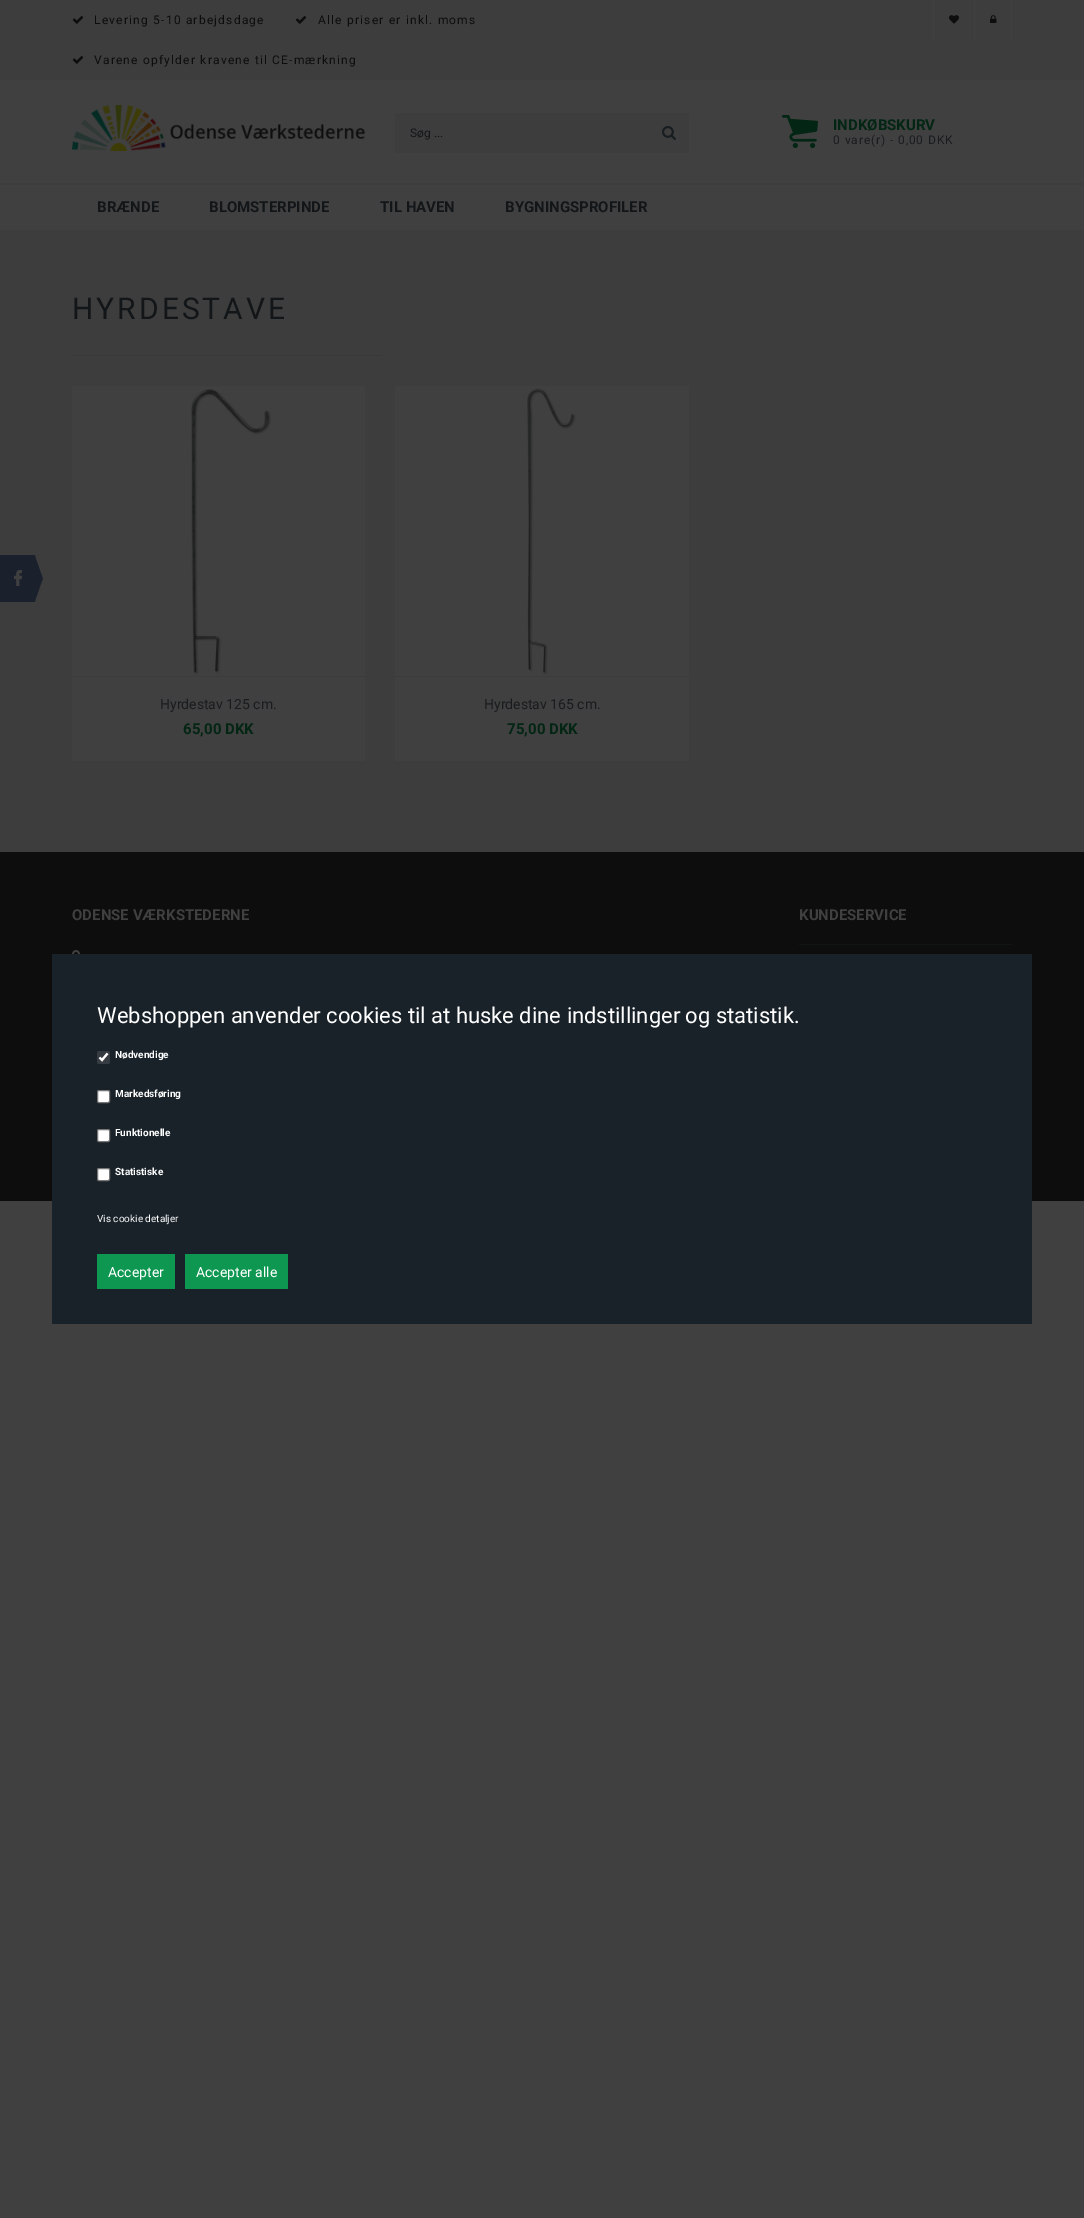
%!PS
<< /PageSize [1084 2218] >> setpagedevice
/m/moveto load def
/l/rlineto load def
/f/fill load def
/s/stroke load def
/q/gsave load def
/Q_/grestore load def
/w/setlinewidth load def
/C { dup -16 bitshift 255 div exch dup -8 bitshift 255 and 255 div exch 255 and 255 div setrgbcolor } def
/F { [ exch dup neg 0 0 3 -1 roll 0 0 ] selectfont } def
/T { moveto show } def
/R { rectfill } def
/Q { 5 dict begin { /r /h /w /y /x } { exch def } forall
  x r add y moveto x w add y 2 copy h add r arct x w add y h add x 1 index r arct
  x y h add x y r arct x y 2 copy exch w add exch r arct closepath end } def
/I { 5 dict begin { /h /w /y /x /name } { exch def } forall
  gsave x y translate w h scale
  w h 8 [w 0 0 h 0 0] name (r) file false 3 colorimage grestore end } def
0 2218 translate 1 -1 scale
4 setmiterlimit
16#404040 C
0 0 1084 2218 R
16#3D3D3D C
0 0 1084 80 R
(1.rgb) 72 16 12 8 I
/Roboto-Regular 12 F
16#0D0D0D C
94 24 m 1.2 0 (Levering 5-10 arbejdsdage) ashow
(1.rgb) 295 16 12 8 I
318 24 m 1.2 0 (Alle priser er inkl. moms) ashow
(1.rgb) 72 56 12 8 I
94 64 m 1.2 0 (Varene opfylder kravene til CE-mærkning) ashow
16#404040 C
933 0 1 40 R
974 0 1 40 R
(2.rgb) 949 15 10 9 I
1011 0 1 40 R
(3.rgb) 990 15 7 8 I
(4.rgb) 72 105 293 46 I
16#3D3D3D C
395 113 294 40 R
16#131618 C
(Søg ...) 410 137 T
(5.rgb) 662 126 14 14 I
(6.rgb) 782 115 36 33 I
/Roboto-Bold 15 F
16#032614 C
(INDKØBSKURV) 833 130 T
/Roboto-Regular 12 F
16#191C1F C
833 144 m .9 0 (0 vare\(r\) - 0,00 DKK) ashow
16#3D3D3D C
0 183 1084 2 R
0 230 1084 622 R
/Roboto-Bold 15 F
16#131618 C
(BRÆNDE) 97 212 T
(BLOMSTERPINDE) 209 212 T
(TIL HAVEN) 380 212 T
(BYGNINGSPROFILER) 505 212 T
(7.rgb) 0 555 43 47 I
/Roboto-Regular 30 F
72 319 m 3 0 (HYRDESTAVE) ashow
16#37393A C
72 355 310 1 R
16#404040 C
72 386 293 375 R
16#3B3C3D C
72 676 293 1 R
(8.rgb) 191 389 80 286 I
/Roboto-Regular 14 F
16#191C1F C
(Hyrdestav 125 cm.) 160 709 T
/Roboto-Bold 15 F
16#032614 C
(65,00 DKK) 183 734 T
16#404040 C
395 386 294 375 R
16#3B3C3D C
395 676 294 1 R
(9.rgb) 527 388 49 287 I
/Roboto-Regular 14 F
16#191C1F C
(Hyrdestav 165 cm.) 484 709 T
/Roboto-Bold 15 F
16#032614 C
(75,00 DKK) 507 734 T
16#0D0D0D C
0 852 1084 349 R
16#404040 C
(ODENSE VÆRKSTEDERNE) 72 920 T
(10.rgb) 72 950 8 4 I
(KUNDESERVICE) 799 920 T
16#121516 C
799 944 213 1 R
16#192229 C
52 954 980 370 R
/Roboto-Regular 22 F
16#FFFFFF C
(Webshoppen anvender cookies til at huske dine indstillinger og statistik.) 97 1023 T
16#353B40 C
97 1051 13 13 2 Q f
16#FFFFFF C
2.1 w
99.5 1057.5 m 2.5 2.5 l 5.5 -6.5 l s
/Roboto-Bold 10 F
(Nødvendige) 115 1058 T
97.5 1090.5 12 12 1.5 Q q f Q_
16#767676 C
1 w
s
16#FFFFFF C
(Markedsføring) 115 1097 T
97.5 1129.5 12 12 1.5 Q q f Q_
16#767676 C
s
16#FFFFFF C
(Funktionelle) 115 1136 T
97.5 1168.5 12 12 1.5 Q q f Q_
16#767676 C
s
16#FFFFFF C
(Statistiske) 115 1175 T
/Roboto-Regular 10 F
(Vis cookie detaljer) 97 1222 T
16#0D9751 C
97 1254 78 35 R
/Roboto-Regular 14 F
16#FFFFFF C
(Accepter) 108 1277 T
16#0D9751 C
185 1254 103 35 R
16#FFFFFF C
(Accepter alle) 196 1277 T
showpage
